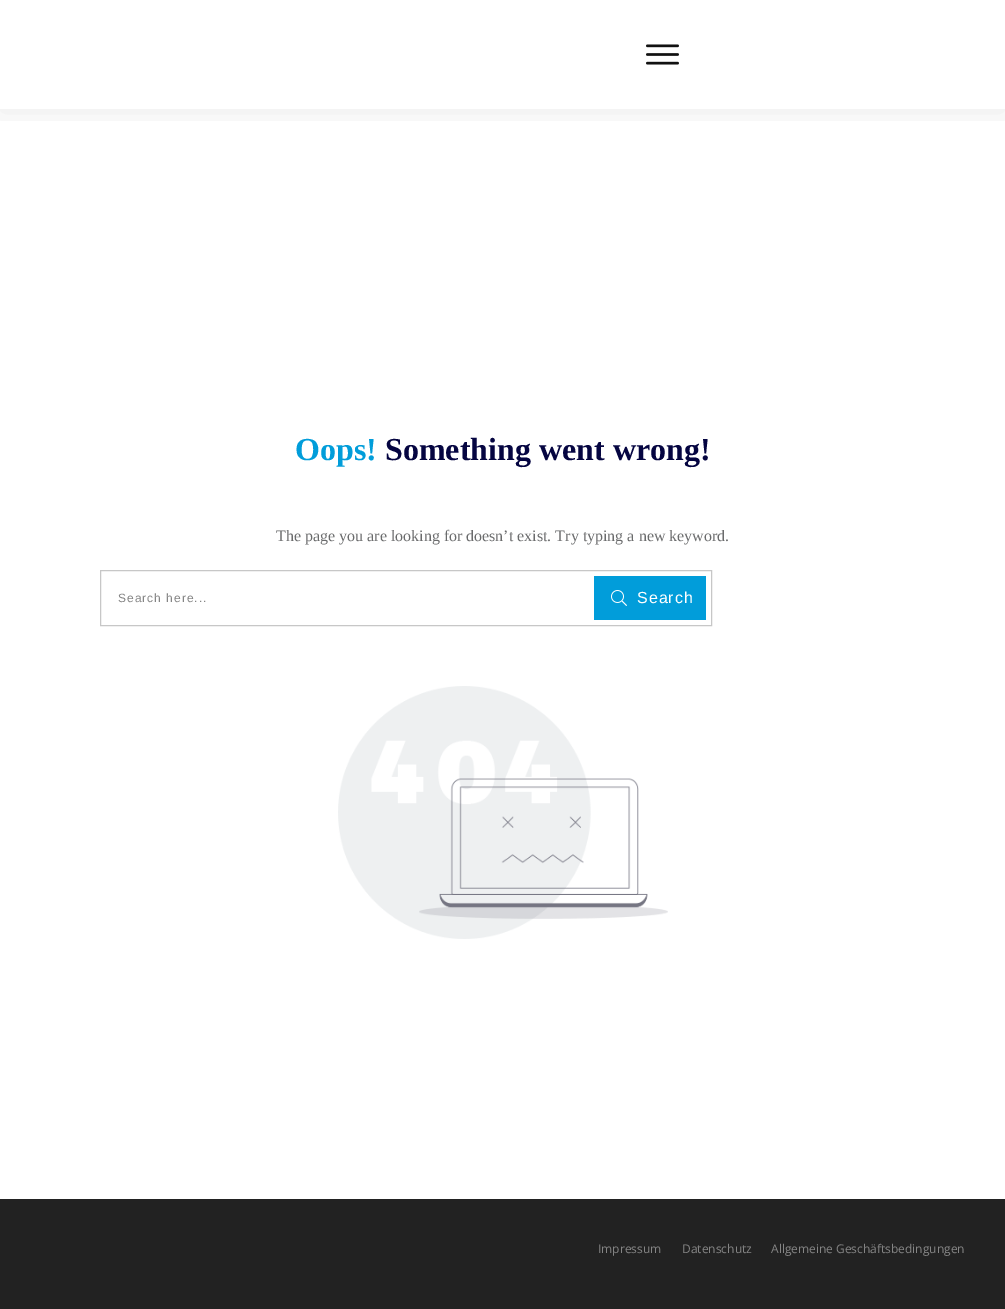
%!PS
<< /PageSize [1005 1309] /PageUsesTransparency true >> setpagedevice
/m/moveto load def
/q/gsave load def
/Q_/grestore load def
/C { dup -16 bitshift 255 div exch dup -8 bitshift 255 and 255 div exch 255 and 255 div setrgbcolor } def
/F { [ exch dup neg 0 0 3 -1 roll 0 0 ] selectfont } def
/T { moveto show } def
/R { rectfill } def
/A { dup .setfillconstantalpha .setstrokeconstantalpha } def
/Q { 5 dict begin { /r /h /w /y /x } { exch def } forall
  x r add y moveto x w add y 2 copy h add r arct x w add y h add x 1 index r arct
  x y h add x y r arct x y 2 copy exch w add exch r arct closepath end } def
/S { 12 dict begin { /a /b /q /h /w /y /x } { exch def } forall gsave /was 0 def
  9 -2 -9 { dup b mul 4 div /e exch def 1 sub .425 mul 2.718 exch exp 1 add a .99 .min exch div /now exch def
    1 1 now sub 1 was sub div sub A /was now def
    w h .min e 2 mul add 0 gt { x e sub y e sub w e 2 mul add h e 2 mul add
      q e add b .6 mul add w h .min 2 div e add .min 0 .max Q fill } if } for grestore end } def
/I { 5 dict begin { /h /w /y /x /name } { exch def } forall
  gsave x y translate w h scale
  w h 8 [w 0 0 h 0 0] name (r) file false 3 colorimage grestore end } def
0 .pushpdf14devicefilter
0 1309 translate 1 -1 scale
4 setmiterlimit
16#FFFFFF C
0 0 1005 1309 R
q
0 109 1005 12 rectclip
16#000000 C
0 2 1005 109 0 15 .08 S
Q_
(1.rgb) 646 44 33 21 I
/LiberationSerif-Bold 32 F
16#019DDA C
(Oops!) 295 460 T
16#050541 C
(Something went wrong!) 385 460 T
/LiberationSerif-Regular 16 F
16#6A6B6C C
(The page you are looking for doesn’t exist. Try typing a new keyword.) 276 541 T
16#C7C7C7 C
100.5 570.5 611 55 rectstroke
/LiberationSans-Regular 12 F
16#858585 C
118 602 m 1 0 (Search here...) ashow
16#019DDA C
594 576 112 44 R
(2.rgb) 611 590 16 16 I
/LiberationSans-Regular 16 F
16#FFFFFF C
637 603 m 1 0 (Search) ashow
(3.rgb) 338 686 330 253 I
16#222222 C
0 1199 1005 110 R
/OpenSans-Regular 12 F
16#858585 C
(Impressum) 598 1253 T
(Datenschutz) 682 1253 T
(Allgemeine Geschäftsbedingungen) 771 1253 T
.poppdf14devicefilter showpage
